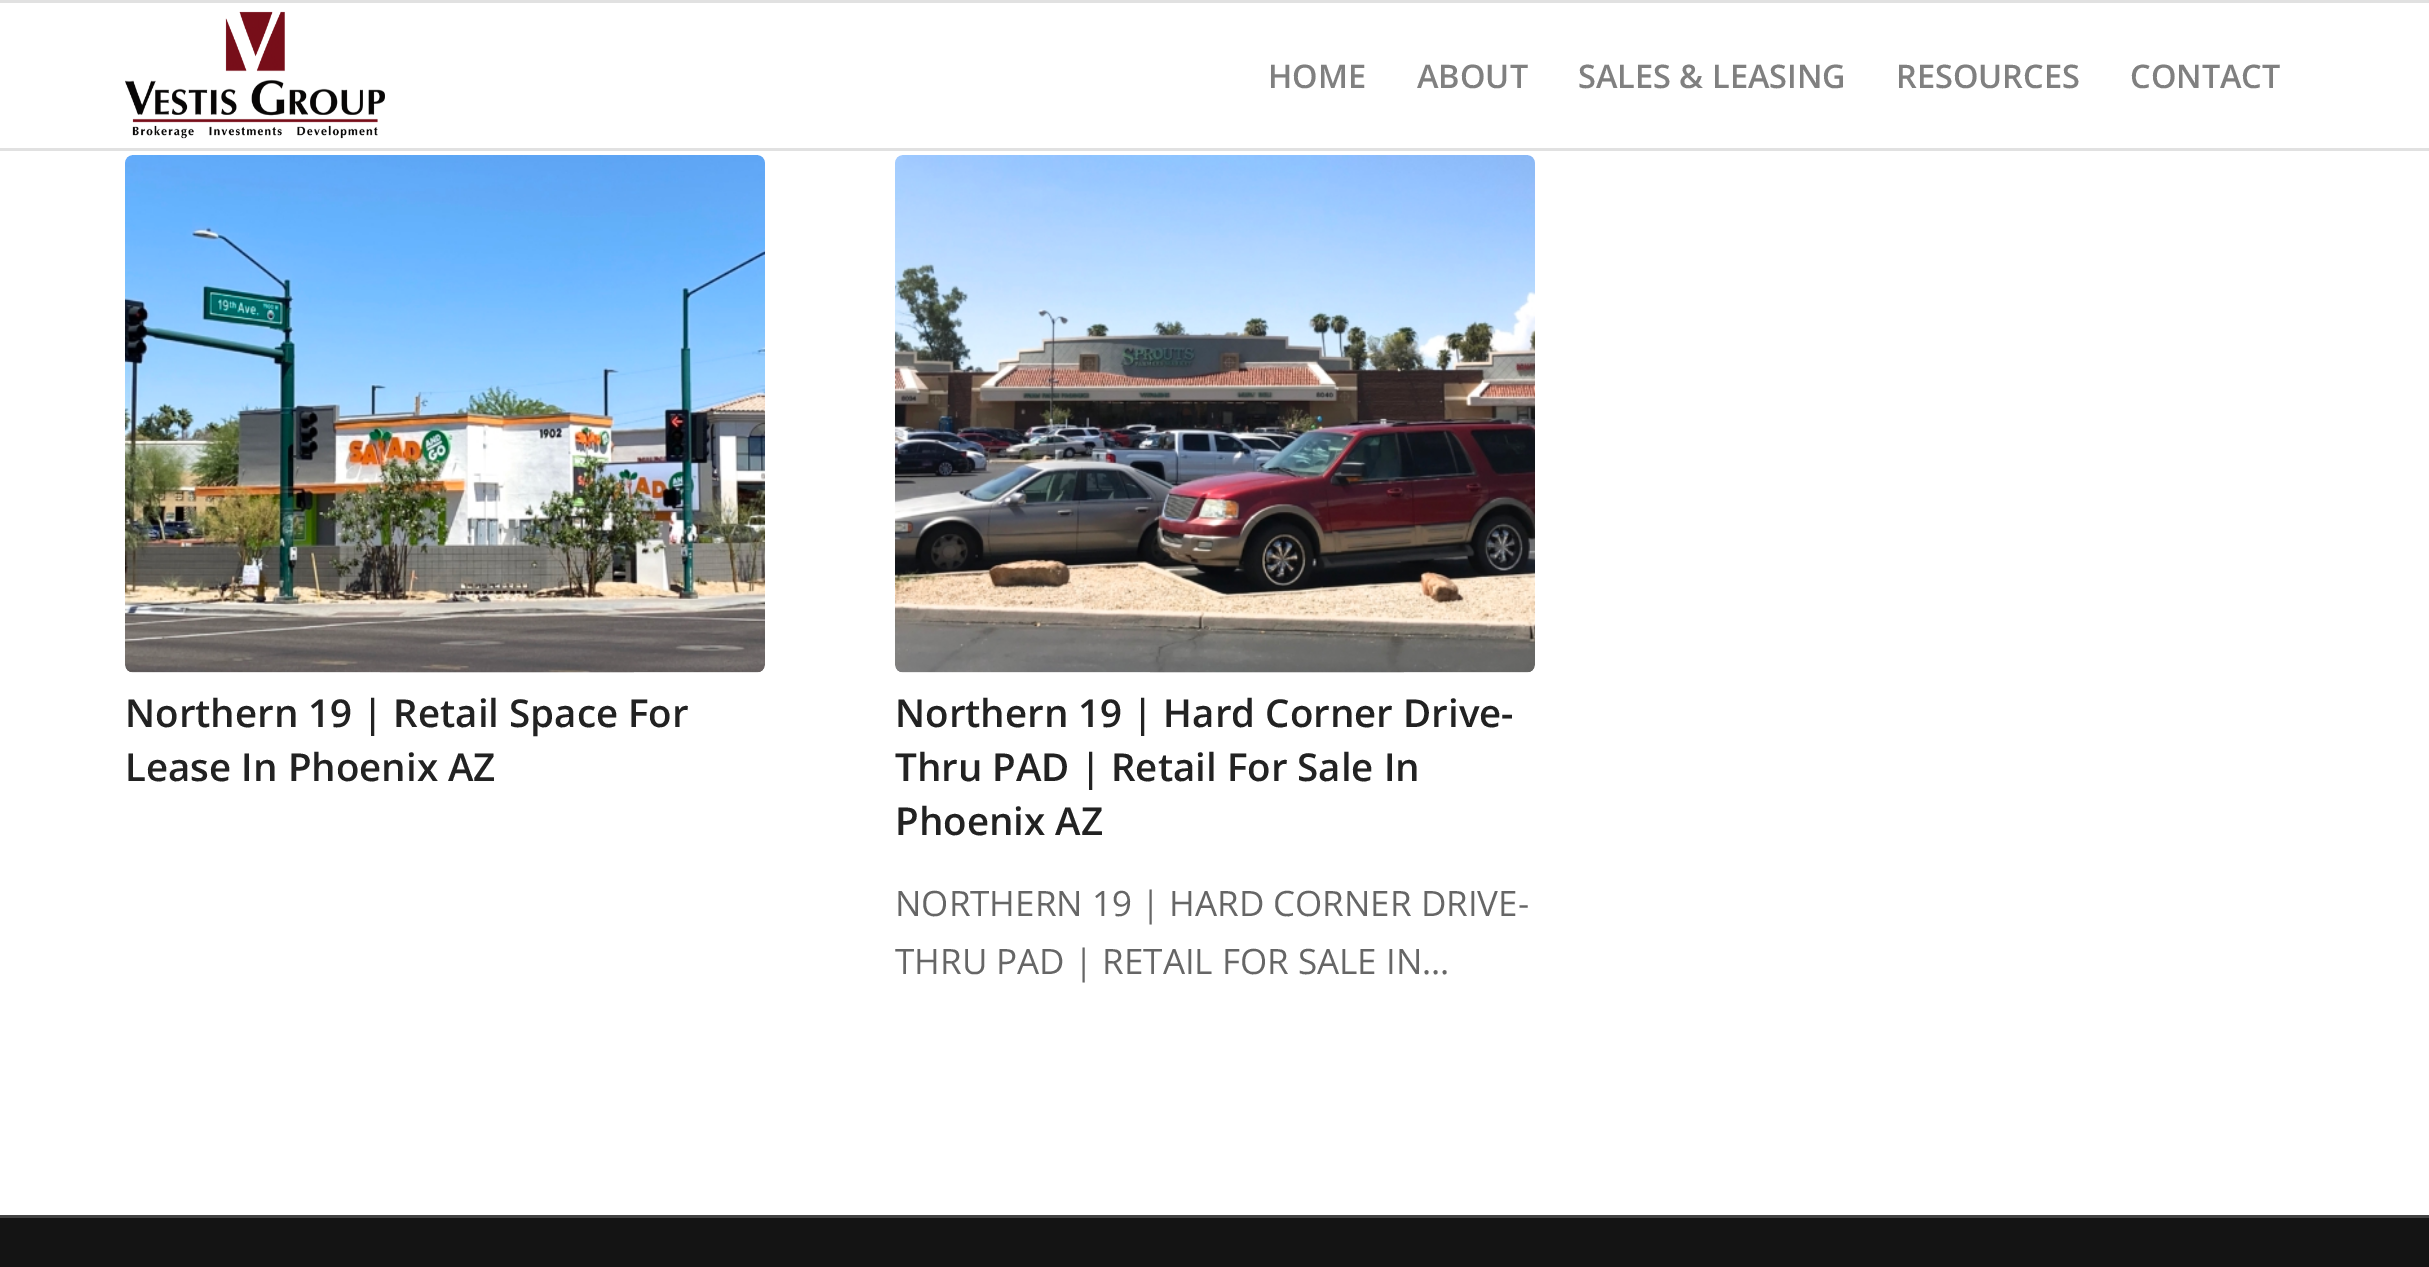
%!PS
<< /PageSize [2429 1267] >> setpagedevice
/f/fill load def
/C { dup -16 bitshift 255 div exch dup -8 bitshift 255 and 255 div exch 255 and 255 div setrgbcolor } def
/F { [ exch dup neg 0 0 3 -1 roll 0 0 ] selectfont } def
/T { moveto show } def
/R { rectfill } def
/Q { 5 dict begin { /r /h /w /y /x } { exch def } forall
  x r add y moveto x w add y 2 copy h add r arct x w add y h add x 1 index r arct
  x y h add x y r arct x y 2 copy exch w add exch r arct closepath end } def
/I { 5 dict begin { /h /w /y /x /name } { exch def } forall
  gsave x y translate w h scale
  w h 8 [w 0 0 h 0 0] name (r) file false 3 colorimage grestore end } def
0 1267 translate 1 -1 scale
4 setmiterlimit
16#FFFFFF C
0 0 2429 1267 R
16#E1E1E1 C
0 0 2429 3 R
0 148 2429 3 R
(1.rgb) 125 11 260 128 I
/OpenSans-SemiBold 32.5 F
16#808080 C
(HOME) 1268 88 T
(ABOUT) 1417 88 T
(SALES & LEASING) 1578 88 T
(RESOURCES) 1896 88 T
(CONTACT) 2130 88 T
16#FCFCFC C
125 155 640 518 8 Q f
(2.rgb) 125 155 640 518 I
/OpenSans-SemiBold 38.5 F
16#222222 C
(Northern 19 | Retail Space For) 125 727 T
(Lease In Phoenix AZ) 125 781 T
16#FCFCFC C
895 155 640 518 8 Q f
(3.rgb) 895 155 640 518 I
16#222222 C
(Northern 19 | Hard Corner Drive-) 895 727 T
(Thru PAD | Retail For Sale In) 895 781 T
(Phoenix AZ) 895 835 T
/OpenSans-Regular 35 F
16#666666 C
(NORTHERN 19 | HARD CORNER DRIVE-) 895 916 T
(THRU PAD | RETAIL FOR SALE IN…) 895 974 T
16#141414 C
0 1218 2429 49 R
16#444444 C
0 1215 2429 3 R
showpage
